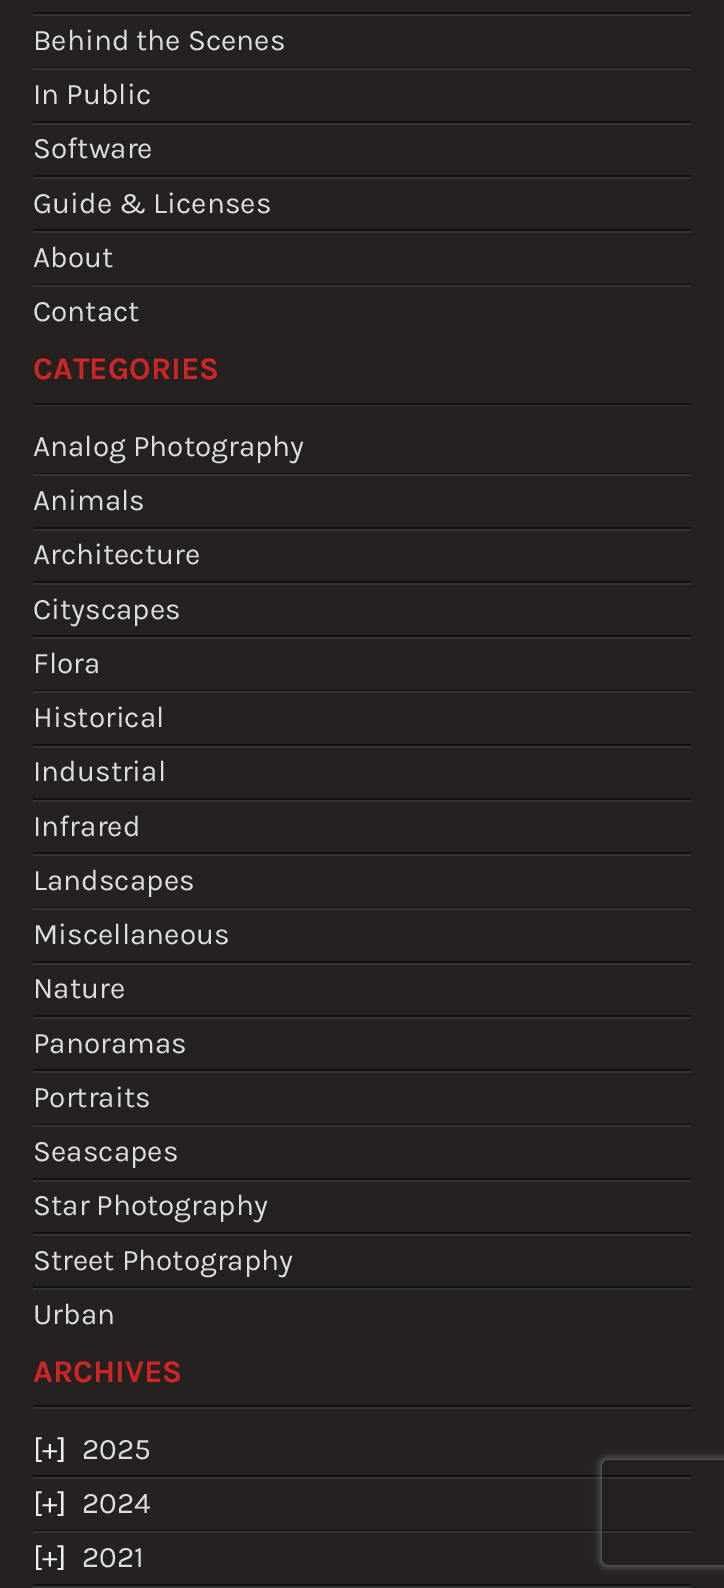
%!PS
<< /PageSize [724 1588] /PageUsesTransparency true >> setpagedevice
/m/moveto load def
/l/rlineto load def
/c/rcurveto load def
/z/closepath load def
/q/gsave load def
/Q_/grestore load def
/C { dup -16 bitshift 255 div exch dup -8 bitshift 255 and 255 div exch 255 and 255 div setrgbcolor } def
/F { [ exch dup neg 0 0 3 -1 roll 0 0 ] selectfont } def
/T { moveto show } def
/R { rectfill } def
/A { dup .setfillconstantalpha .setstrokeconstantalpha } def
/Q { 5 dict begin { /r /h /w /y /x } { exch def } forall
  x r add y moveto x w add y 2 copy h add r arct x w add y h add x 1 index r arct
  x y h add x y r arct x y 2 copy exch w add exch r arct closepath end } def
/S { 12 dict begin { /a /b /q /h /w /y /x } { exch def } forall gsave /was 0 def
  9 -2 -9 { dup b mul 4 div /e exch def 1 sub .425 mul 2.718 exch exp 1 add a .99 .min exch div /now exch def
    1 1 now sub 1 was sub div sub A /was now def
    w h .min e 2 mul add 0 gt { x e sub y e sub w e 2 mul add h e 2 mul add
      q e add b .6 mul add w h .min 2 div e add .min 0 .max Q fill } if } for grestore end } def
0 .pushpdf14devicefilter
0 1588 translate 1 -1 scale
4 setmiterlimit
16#262121 C
0 0 724 1588 R
16#111111 C
33 12 658 2 R
16#333333 C
33 14 658 2 R
16#111111 C
33 67 658 1 R
/Karla-Regular 29.75 F
16#DDDDDD C
(Behind the Scenes) 33 50 T
16#333333 C
33 68 658 2 R
16#111111 C
33 121 658 2 R
16#DDDDDD C
(In Public) 33 104 T
16#333333 C
33 123 658 2 R
16#111111 C
33 175 658 2 R
16#DDDDDD C
(Software) 33 158 T
16#333333 C
33 177 658 2 R
16#111111 C
33 229 658 2 R
16#DDDDDD C
(Guide & Licenses) 33 213 T
16#333333 C
33 231 658 2 R
16#111111 C
33 284 658 1 R
16#DDDDDD C
(About) 33 267 T
16#333333 C
33 285 658 2 R
16#DDDDDD C
(Contact) 33 321 T
16#333333 C
33 405 658 1 R
16#111111 C
33 403 658 2 R
/Karla-Bold 31.5 F
16#CE2525 C
(CATEGORIES) 33 379 T
16#111111 C
33 473 658 1 R
/Karla-Regular 29.75 F
16#DDDDDD C
(Analog Photography) 33 456 T
16#333333 C
33 474 658 2 R
16#111111 C
33 527 658 2 R
16#DDDDDD C
(Animals) 33 510 T
16#333333 C
33 529 658 2 R
16#111111 C
33 581 658 2 R
16#DDDDDD C
(Architecture) 33 564 T
16#333333 C
33 583 658 2 R
16#111111 C
33 635 658 2 R
16#DDDDDD C
(Cityscapes) 33 619 T
16#333333 C
33 637 658 2 R
16#111111 C
33 690 658 1 R
16#DDDDDD C
(Flora) 33 673 T
16#333333 C
33 691 658 2 R
16#111111 C
33 744 658 2 R
16#DDDDDD C
(Historical) 33 727 T
16#333333 C
33 746 658 2 R
16#111111 C
33 798 658 2 R
16#DDDDDD C
(Industrial) 33 781 T
16#333333 C
33 800 658 2 R
16#111111 C
33 852 658 2 R
16#DDDDDD C
(Infrared) 33 836 T
16#333333 C
33 854 658 2 R
16#111111 C
33 907 658 1 R
16#DDDDDD C
(Landscapes) 33 890 T
16#333333 C
33 908 658 2 R
16#111111 C
33 961 658 2 R
16#DDDDDD C
(Miscellaneous) 33 944 T
16#333333 C
33 963 658 2 R
16#111111 C
33 1015 658 2 R
16#DDDDDD C
(Nature) 33 998 T
16#333333 C
33 1017 658 2 R
16#111111 C
33 1069 658 2 R
16#DDDDDD C
(Panoramas) 33 1053 T
16#333333 C
33 1071 658 2 R
16#111111 C
33 1124 658 1 R
16#DDDDDD C
(Portraits) 33 1107 T
16#333333 C
33 1125 658 2 R
16#111111 C
33 1178 658 2 R
16#DDDDDD C
(Seascapes) 33 1161 T
16#333333 C
33 1180 658 2 R
16#111111 C
33 1232 658 2 R
16#DDDDDD C
(Star Photography) 33 1215 T
16#333333 C
33 1234 658 2 R
16#111111 C
33 1286 658 2 R
16#DDDDDD C
(Street Photography) 33 1270 T
16#333333 C
33 1288 658 2 R
16#DDDDDD C
(Urban) 33 1324 T
16#333333 C
33 1407 658 2 R
16#111111 C
33 1405 658 2 R
/Karla-Bold 31.5 F
16#CE2525 C
(ARCHIVES) 33 1382 T
16#111111 C
33 1475 658 2 R
/Karla-Regular 29.75 F
16#EEEEEE C
([+]) 33 1459 T
16#DDDDDD C
(2025) 82 1459 T
16#333333 C
33 1477 658 2 R
16#111111 C
33 1530 658 1 R
16#EEEEEE C
([+]) 33 1513 T
16#DDDDDD C
(2024) 82 1513 T
16#333333 C
33 1531 658 2 R
16#111111 C
33 1584 658 2 R
16#EEEEEE C
([+]) 33 1567 T
16#DDDDDD C
(2021) 82 1567 T
16#333333 C
33 1586 658 2 R
q
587 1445 m 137 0 l 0 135 l -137 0 l z 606 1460 m 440 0 l 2 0 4 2 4 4 c 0 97 l 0 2 -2 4 -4 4 c -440 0 l -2 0 -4 -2 -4 -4 c 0 -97 l 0 -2 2 -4 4 -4 c z eoclip newpath
16#808080 C
602 1460 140 105 4 4.5 1 S
Q_
.poppdf14devicefilter showpage
